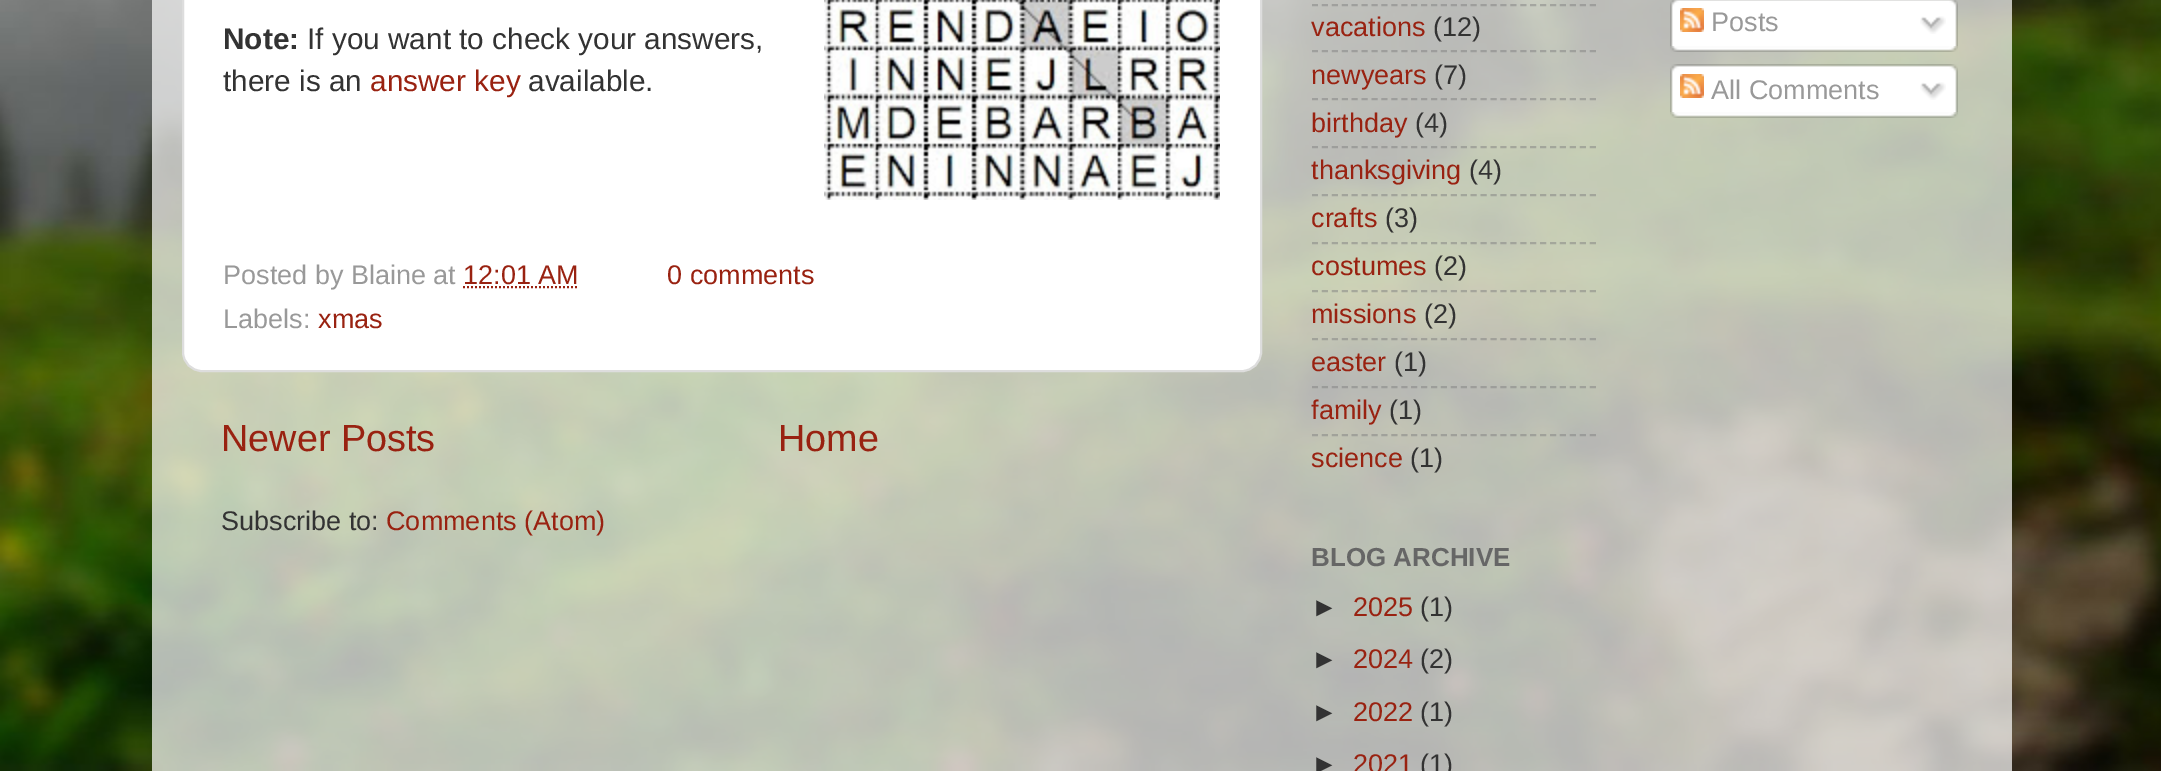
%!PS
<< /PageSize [2161 771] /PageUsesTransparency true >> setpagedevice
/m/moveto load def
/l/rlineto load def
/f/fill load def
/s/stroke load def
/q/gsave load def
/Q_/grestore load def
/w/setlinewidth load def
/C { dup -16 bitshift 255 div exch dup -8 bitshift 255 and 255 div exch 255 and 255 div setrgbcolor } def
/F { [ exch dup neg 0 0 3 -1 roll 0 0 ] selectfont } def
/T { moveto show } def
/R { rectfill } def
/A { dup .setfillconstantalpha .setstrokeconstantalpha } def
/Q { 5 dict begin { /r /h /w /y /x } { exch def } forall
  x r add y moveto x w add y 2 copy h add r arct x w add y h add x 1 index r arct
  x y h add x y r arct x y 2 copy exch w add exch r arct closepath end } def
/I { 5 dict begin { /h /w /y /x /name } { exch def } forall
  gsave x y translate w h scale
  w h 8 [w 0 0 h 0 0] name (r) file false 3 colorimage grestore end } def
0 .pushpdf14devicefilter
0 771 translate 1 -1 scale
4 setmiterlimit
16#FFFFFF C
0 0 2161 771 R
(1.rgb) 0 0 2161 771 I
0.7 A
152 0 1860 771 R
1 A
183 -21 1078 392 19 Q q f Q_
16#DDDDDD C
2 w
s
/LiberationSans-Bold 29.75 F
16#333333 C
(Note:) 223 49 T
/LiberationSans-Regular 29.75 F
(If you want to check your answers,) 307 49 T
(2.rgb) 824 0 396 200 I
(there is an) 223 91 T
16#992211 C
(answer key) 370 91 T
16#333333 C
(available.) 528 91 T
/LiberationSans-Regular 27 F
16#999999 C
(Posted by Blaine at) 223 284 T
16#992211 C
(12:01 AM) 463 284 T
[2 2] 0 setdash
463 287 m 116 0 l s
(0 comments) 667 284 T
16#999999 C
(Labels:) 223 328 T
16#992211 C
(xmas) 318 328 T
/LiberationSans-Regular 37.75 F
(Newer Posts) 221 451 T
(Home) 778 451 T
/LiberationSans-Regular 27 F
16#333333 C
(Subscribe to:) 221 530 T
16#992211 C
(Comments \(Atom\)) 386 530 T
0.5 A
16#808080 C
[6 3.92] 0 setdash
1312 5 m 284 0 l s
1 A
16#992211 C
(vacations) 1311 36 T
16#333333 C
(\(12\)) 1433 36 T
0.5 A
16#808080 C
1312 51 m 284 0 l s
1 A
16#992211 C
(newyears) 1311 84 T
16#333333 C
(\(7\)) 1434 84 T
0.5 A
16#808080 C
1312 99 m 284 0 l s
1 A
16#992211 C
(birthday) 1311 132 T
16#333333 C
(\(4\)) 1415 132 T
0.5 A
16#808080 C
1312 147 m 284 0 l s
1 A
16#992211 C
(thanksgiving) 1311 179 T
16#333333 C
(\(4\)) 1469 179 T
0.5 A
16#808080 C
1312 195 m 284 0 l s
1 A
16#992211 C
(crafts) 1311 227 T
16#333333 C
(\(3\)) 1385 227 T
0.5 A
16#808080 C
1312 243 m 284 0 l s
1 A
16#992211 C
(costumes) 1311 275 T
16#333333 C
(\(2\)) 1434 275 T
0.5 A
16#808080 C
1312 291 m 284 0 l s
1 A
16#992211 C
(missions) 1311 323 T
16#333333 C
(\(2\)) 1424 323 T
0.5 A
16#808080 C
1312 339 m 284 0 l s
1 A
16#992211 C
(easter) 1311 371 T
16#333333 C
(\(1\)) 1394 371 T
0.5 A
16#808080 C
1312 387 m 284 0 l s
1 A
16#992211 C
(family) 1311 419 T
16#333333 C
(\(1\)) 1389 419 T
0.5 A
16#808080 C
1312 435 m 284 0 l s
1 A
16#992211 C
(science) 1311 467 T
16#333333 C
(\(1\)) 1410 467 T
(3.rgb) 1670 0 288 46 I
(4.rgb) 1680 8 24 24 I
16#999999 C
(Posts) 1711 31 T
(5.rgb) 1920 16 26 18 I
(6.rgb) 1670 46 288 6 I
(7.rgb) 1670 64 288 48 I
(4.rgb) 1680 74 24 24 I
(All Comments) 1711 99 T
(5.rgb) 1920 82 26 18 I
(8.rgb) 1670 112 288 6 I
/LiberationSans-Bold 26 F
16#666666 C
(BLOG ARCHIVE) 1311 566 T
/LiberationSans-Regular 27 F
16#333333 C
(►) 1311 616 T
16#992211 C
(2025) 1353 616 T
16#333333 C
(\(1\)) 1420 616 T
(►) 1311 668 T
16#992211 C
(2024) 1353 668 T
16#333333 C
(\(2\)) 1420 668 T
(►) 1311 721 T
16#992211 C
(2022) 1353 721 T
16#333333 C
(\(1\)) 1420 721 T
(►) 1311 773 T
16#992211 C
(2021) 1353 773 T
16#333333 C
(\(1\)) 1420 773 T
.poppdf14devicefilter showpage
